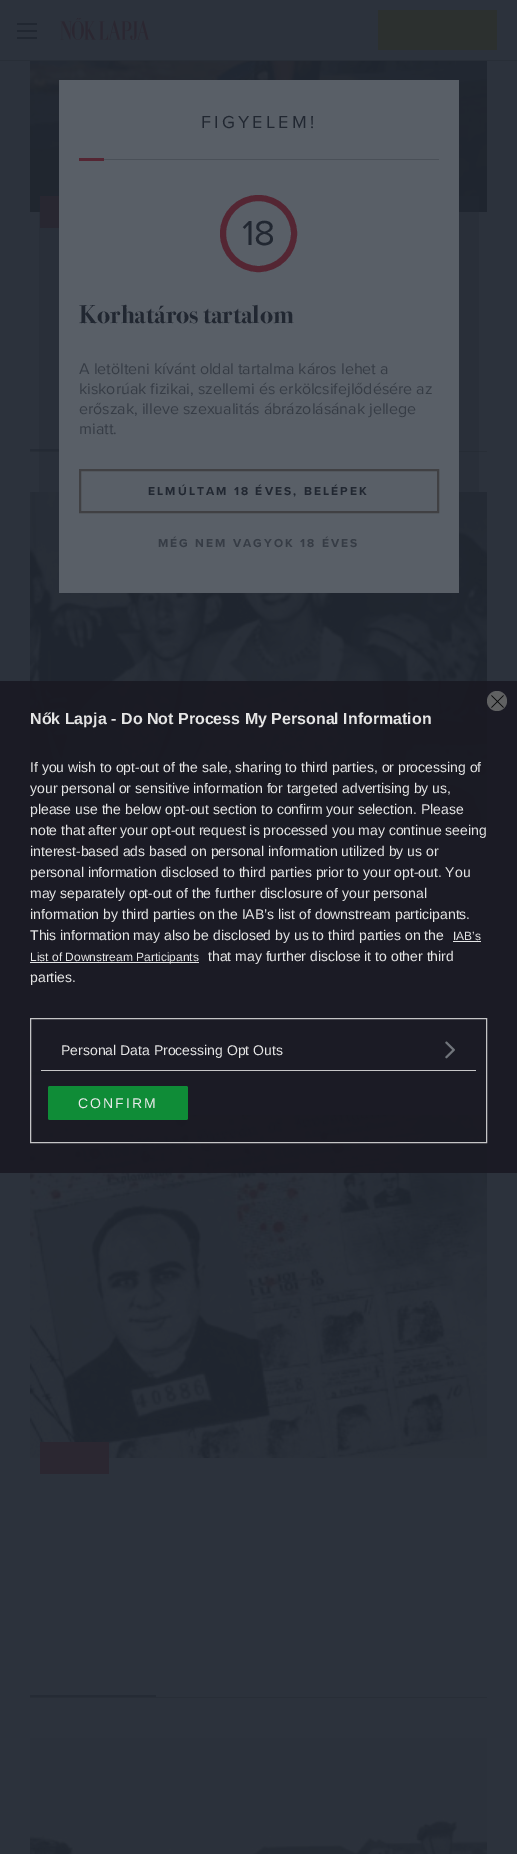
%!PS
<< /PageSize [517 1854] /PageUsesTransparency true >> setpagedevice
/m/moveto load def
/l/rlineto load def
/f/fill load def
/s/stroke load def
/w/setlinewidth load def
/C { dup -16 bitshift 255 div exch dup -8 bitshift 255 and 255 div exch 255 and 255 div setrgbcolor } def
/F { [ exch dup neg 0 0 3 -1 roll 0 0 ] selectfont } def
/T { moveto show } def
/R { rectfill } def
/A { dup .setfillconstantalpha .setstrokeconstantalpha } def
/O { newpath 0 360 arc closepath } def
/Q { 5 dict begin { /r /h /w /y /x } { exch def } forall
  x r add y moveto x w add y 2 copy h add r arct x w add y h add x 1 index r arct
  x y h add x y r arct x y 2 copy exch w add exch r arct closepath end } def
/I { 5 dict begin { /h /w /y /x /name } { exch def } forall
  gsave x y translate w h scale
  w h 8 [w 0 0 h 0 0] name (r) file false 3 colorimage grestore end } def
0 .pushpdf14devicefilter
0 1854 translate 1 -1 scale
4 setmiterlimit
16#2C323C C
0 0 517 1854 R
16#282E37 C
0 60 517 1 R
(1.rgb) 17 23 20 16 I
(2.rgb) 60 18 90 22 I
16#2C302F C
378 10 119 40 R
(3.rgb) 30 61 457 151 I
16#282E37 C
30 451 457 1 R
16#2B2731 C
40 196 19 32 R
16#252B35 C
30 449 29 2 R
(4.rgb) 30 492 457 343 I
16#282E37 C
30 1074 457 1 R
16#2B2731 C
40 819 69 32 R
16#252B35 C
30 1072 151 2 R
(5.rgb) 30 1115 457 343 I
16#282E37 C
30 1697 457 1 R
16#2B2731 C
40 1442 69 32 R
16#252B35 C
30 1695 126 2 R
(6.rgb) 30 1738 457 116 I
0.3 A
16#212731 C
39 196 440 296 R
1 A
16#595F67 C
59 80 400 513 R
16#4A5058 C
104 159 335 1 R
/ProximaNova-Regular 18 F
16#212731 C
201 128 m 3.25 0 (FIGYELEM!) ashow
16#542633 C
79 158 25 3 R
6 w
258.5 233.5 35.5 O s
/ProximaNova-Regular 36 F
16#212731 C
(18) 242 245 T
/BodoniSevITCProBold-Regular 26 F
(Korhatáros tartalom) 79 323 T
/ProximaNova-Regular 16 F
16#363C45 C
(A letölteni kívánt oldal tartalma káros lehet a) 79 374 T
(kiskorúak fizikai, szellemi és erkölcsifejlődésére az) 79 394 T
(erőszak, illeve szexualitás ábrázolásának jellege) 79 414 T
(miatt.) 79 434 T
16#404043 C
2 w
80 470 358 42 rectstroke
/ProximaNova-Bold 12 F
16#212731 C
148 495 m 2.1 0 (ELMÚLTAM 18 ÉVES, BELÉPEK) ashow
16#363C45 C
158 547 m 2.1 0 (MÉG NEM VAGYOK 18 ÉVES) ashow
0.9 A
16#191922 C
0 681 517 492 R
1 A
16#606162 C
497 701 10 O f
16#040506 C
.5 w
1 setlinecap
1 setlinejoin
491.5 695.5 m 12 12 l 503.5 695.5 m -12 12 l s
/LiberationSans-Bold 16 F
16#E5E5E5 C
(Nők Lapja -) 30 724 T
(Do Not Process My Personal Information) 121 724 T
/LiberationSans-Regular 14 F
(If you wish to opt-out of the sale, sharing to third parties, or processing of) 30 772 T
(your personal or sensitive information for targeted advertising by us,) 30 793 T
(please use the below opt-out section to confirm your selection. Please) 30 814 T
(note that after your opt-out request is processed you may continue seeing) 30 835 T
(interest-based ads based on personal information utilized by us or) 30 856 T
(personal information disclosed to third parties prior to your opt-out. You) 30 877 T
(may separately opt-out of the further disclosure of your personal) 30 898 T
(information by third parties on the IAB’s list of downstream participants.) 30 919 T
(This information may also be disclosed by us to third parties on the) 30 940 T
/LiberationSans-Regular 12 F
(IAB’s) 453 940 T
16#E6E7E8 C
453 941 28 1 R
30 962 169 1 R
16#E5E5E5 C
(List of Downstream Participants) 30 961 T
/LiberationSans-Regular 14 F
(that may further disclose it to other third) 208 961 T
(parties.) 30 982 T
16#C5C5C6 C
1 w
0 setlinecap
0 setlinejoin
30.5 1018.5 456 124 rectstroke
16#C7C7C8 C
41 1070 435 1 R
16#E5E5E5 C
(Personal Data Processing Opt Outs) 61 1055 T
(7.rgb) 445 1041 10 18 I
16#0F8C37 C
48 1086 140 34 2 Q f
16#EAEAEB C
78 1108 m 2 0 (CONFIRM) ashow
.poppdf14devicefilter showpage
